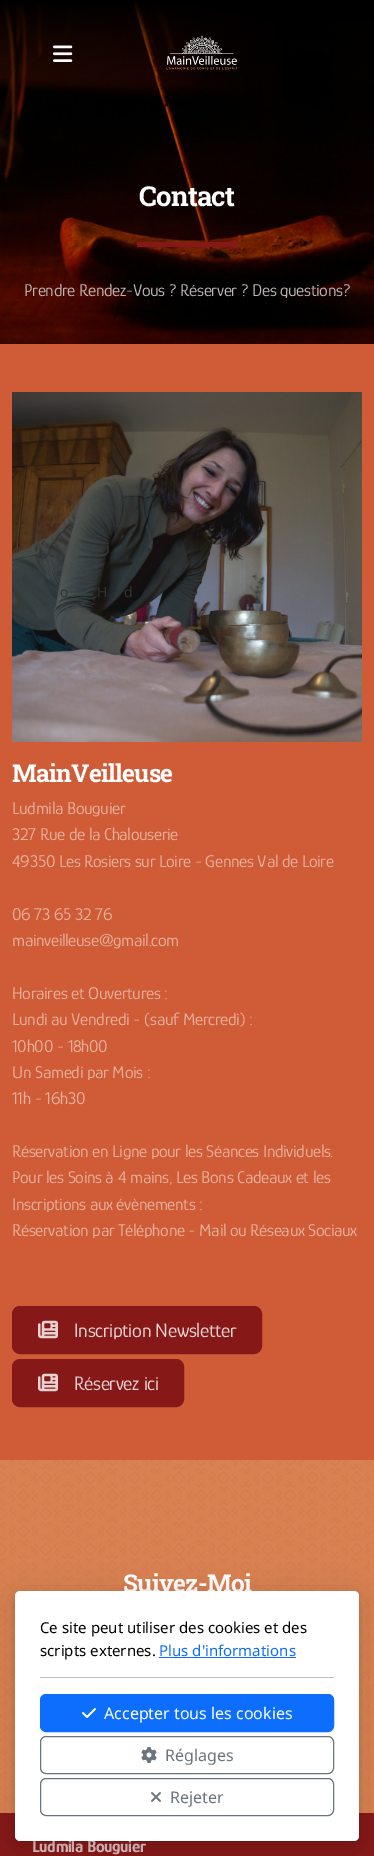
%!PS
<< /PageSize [374 1856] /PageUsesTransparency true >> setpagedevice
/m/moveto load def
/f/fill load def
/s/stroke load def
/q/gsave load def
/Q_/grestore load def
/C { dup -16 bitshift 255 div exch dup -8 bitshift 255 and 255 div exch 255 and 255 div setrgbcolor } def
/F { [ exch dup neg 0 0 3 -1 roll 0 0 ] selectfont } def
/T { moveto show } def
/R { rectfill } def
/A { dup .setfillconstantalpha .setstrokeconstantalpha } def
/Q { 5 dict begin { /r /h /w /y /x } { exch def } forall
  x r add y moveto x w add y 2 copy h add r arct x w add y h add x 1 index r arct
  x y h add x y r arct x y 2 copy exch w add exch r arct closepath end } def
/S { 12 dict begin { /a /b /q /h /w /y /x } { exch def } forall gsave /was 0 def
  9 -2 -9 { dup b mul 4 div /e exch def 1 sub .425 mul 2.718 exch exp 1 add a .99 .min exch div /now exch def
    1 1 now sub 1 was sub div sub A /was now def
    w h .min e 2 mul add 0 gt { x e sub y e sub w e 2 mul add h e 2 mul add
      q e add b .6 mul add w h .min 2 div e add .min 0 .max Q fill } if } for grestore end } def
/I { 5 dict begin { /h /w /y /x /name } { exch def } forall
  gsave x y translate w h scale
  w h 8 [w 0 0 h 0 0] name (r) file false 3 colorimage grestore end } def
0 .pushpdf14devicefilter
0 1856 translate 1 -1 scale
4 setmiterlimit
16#FFFFFF C
0 0 374 1856 R
(3.rgb) 0 0 374 344 I
(1.rgb) 53 45 20 17 I
(2.rgb) 166 35 71 35 I
/RobotoSlab-Bold 27.5 F
139 206 m -.75 0 (Contact) ashow
16#861818 C
137 242 100 5 R
/Glory-Thin 17.6 F
16#BBB3B3 C
24 296 m -.35 0 (Prendre Rendez-Vous ? Réserver ? Des questions?) ashow
16#CF5C36 C
0 344 374 1116 R
(4.rgb) 12 392 350 350 I
/RobotoSlab-Bold 24.5 F
16#FFFFFF C
12 782 m -.75 0 (MainVeilleuse) ashow
/Glory-Thin 17.6 F
16#E7AE9B C
12 814 m -.35 0 (Ludmila Bouguier) ashow
12 840 m -.35 0 (327 Rue de la Chalouserie) ashow
12 867 m -.35 0 (49350 Les Rosiers sur Loire - Gennes Val de Loire) ashow
12 920 m -.35 0 (06 73 65 32 76) ashow
12 946 m -.35 0 (mainveilleuse@gmail.com) ashow
12 999 m -.35 0 (Horaires et Ouvertures :) ashow
12 1025 m -.35 0 (Lundi au Vendredi - \(sauf Mercredi\) :) ashow
12 1052 m -.35 0 (10h00 - 18h00) ashow
12 1078 m -.35 0 (Un Samedi par Mois :) ashow
12 1104 m -.35 0 (11h - 16h30) ashow
12 1157 m -.35 0 (Réservation en Ligne pour les Séances Individuels.) ashow
12 1183 m -.35 0 (Pour les Soins à 4 mains, Les Bons Cadeaux et les) ashow
12 1210 m -.35 0 (Inscriptions aux évènements :) ashow
12 1236 m -.35 0 (Réservation par Téléphone - Mail ou Réseaux Sociaux) ashow
16#861818 C
12.5 1306.5 249 47 7.5 Q q f Q_
s
(5.rgb) 38 1320 20 19 I
/Glory-Thin 20 F
16#E7D1D1 C
74 1337 m -.35 0 (Inscription Newsletter) ashow
16#861818 C
12.5 1359.5 171 47 7.5 Q q f Q_
s
(5.rgb) 38 1373 20 19 I
16#E7D1D1 C
74 1390 m -.35 0 (Réservez ici) ashow
(6.rgb) 0 1460 374 353 I
/RobotoSlab-Bold 24.5 F
16#FFFFFF C
123 1592 m -.75 0 (Suivez-Moi) ashow
16#861818 C
0 1813 374 43 R
/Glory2-Thin 17.6 F
16#DBBABA C
32 1852 m -.35 0 (Ludmila Bouguier) ashow
/NotoSans-Regular 14 F
16#3D3A36 C
(i) 106 553 T
16#303232 C
(o) 60 597 T
(H) 97 597 T
(d) 124 597 T
16#000000 C
15 1596 344 250 5 15 .16 S
15 1592 344 250 5 1.5 .1 S
16#FFFFFF C
15 1591 344 250 5 Q f
/NotoSans-Regular 15 F
16#000000 C
(Ce site peut utiliser des cookies et des) 40 1633 T
(scripts externes.) 40 1656 T
16#0D6EFD C
(Plus d'informations) 159 1656 T
159 1657 137 1 R
16#BFBFBF C
40 1677 294 1 R
16#0D6EFD C
40.5 1694.5 293 37 5.5 Q q f Q_
s
(7.rgb) 82 1708 14 10 I
/NotoSans-Regular 16 F
16#FFFFFF C
(Accepter tous les cookies) 104 1719 T
16#6C757D C
40.5 1736.5 293 37 5.5 Q s
(8.rgb) 141 1747 16 16 I
(Réglages) 165 1761 T
40.5 1778.5 293 37 5.5 Q s
(9.rgb) 151 1792 10 10 I
(Rejeter) 170 1803 T
.poppdf14devicefilter showpage
